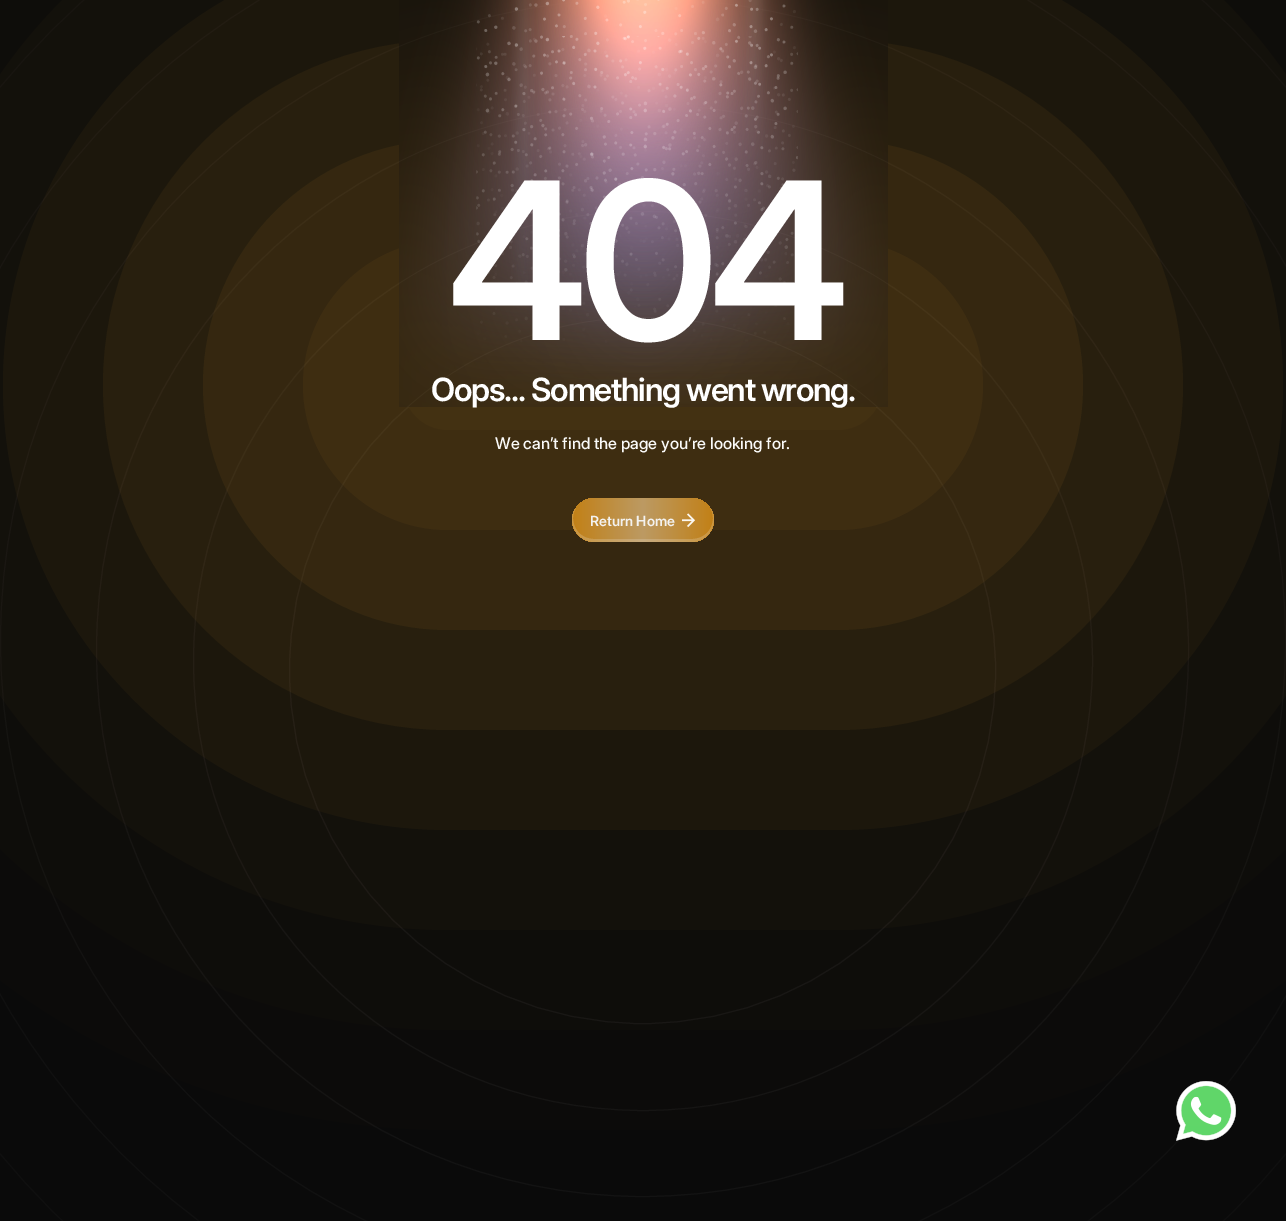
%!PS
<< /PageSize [1286 1221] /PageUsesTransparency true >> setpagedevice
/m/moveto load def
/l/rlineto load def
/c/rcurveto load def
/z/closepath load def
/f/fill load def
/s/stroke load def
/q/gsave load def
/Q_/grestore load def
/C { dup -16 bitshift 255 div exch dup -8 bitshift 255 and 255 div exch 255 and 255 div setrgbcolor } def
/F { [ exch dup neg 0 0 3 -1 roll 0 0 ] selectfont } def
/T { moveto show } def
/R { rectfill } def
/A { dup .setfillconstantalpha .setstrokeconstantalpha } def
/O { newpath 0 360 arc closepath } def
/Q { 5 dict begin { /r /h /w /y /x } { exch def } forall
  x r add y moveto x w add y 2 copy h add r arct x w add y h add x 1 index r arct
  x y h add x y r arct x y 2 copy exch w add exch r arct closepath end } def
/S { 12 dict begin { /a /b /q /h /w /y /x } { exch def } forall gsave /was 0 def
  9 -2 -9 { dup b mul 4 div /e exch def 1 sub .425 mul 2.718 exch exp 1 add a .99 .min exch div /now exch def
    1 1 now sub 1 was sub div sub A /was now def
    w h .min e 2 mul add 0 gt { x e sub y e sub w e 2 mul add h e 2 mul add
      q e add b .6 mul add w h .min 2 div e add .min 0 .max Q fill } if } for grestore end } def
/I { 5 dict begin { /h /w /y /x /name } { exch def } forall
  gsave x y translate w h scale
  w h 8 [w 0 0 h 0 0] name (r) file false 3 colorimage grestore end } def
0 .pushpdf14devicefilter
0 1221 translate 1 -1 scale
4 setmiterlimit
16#0A0A0A C
0 0 1286 1221 R
16#0F0F0F C
-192.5 -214.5 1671 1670 835 Q s
16#101010 C
-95.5 -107.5 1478 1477 738.5 Q s
16#111111 C
643 641 642.5 O s
16#131313 C
642.5 650.5 546 O s
16#141414 C
643 661 449.5 O s
16#151515 C
642.5 670.5 353 O s
16#A47221 C
153 90 980 590 295 200 .4 S
(1.rgb) 399 0 489 407 I
(3.rgb) 476 36 322 307 I
(2.rgb) 476 0 322 307 I
/Inter-SemiBold 220 F
16#FFFFFF C
446 340 m -11 0 (404) ashow
/Inter-SemiBold 32 F
431 401 m -1.25 0 (Oops... Something went wrong.) ashow
/Inter-Medium 16 F
16#FAFAF9 C
(We can’t find the page you’re looking for.) 495 449 T
0.94 A
q 572 498 142 44 22 Q clip newpath
<< /ShadingType 2 /ColorSpace /DeviceRGB /Coords [572 520 714 520] /Extend [true true] /Function << /FunctionType 3 /Domain [0 1] /Functions [<< /FunctionType 2 /Domain [0 1] /C0 [.792 .522 .086] /C1 [.769 .631 .408] /N 1 >> << /FunctionType 2 /Domain [0 1] /C0 [.769 .631 .408] /C1 [.792 .522 .086] /N 1 >>] /Bounds [.5] /Encode [0 1 0 1] >> >> shfill Q_
0.2 A
16#F2F2F0 C
576 508 m -3 3 -4 7 -4 12 c 0 12 10 22 22 22 c 98 0 l 12 0 22 -10 22 -22 c 0 -5 -1 -9 -4 -12 c 2 3 3 6 3 10 c 0 12 -9 21 -21 21 c -98 0 l -12 0 -21 -9 -21 -21 c 0 -4 1 -7 3 -10 c z f
/Inter-SemiBold 14 F
1 A
16#F3F2F0 C
(Return Home) 590 526 T
(4.rgb) 682 513 13 15 I
(5.rgb) 1176 1081 60 60 I
.poppdf14devicefilter showpage
